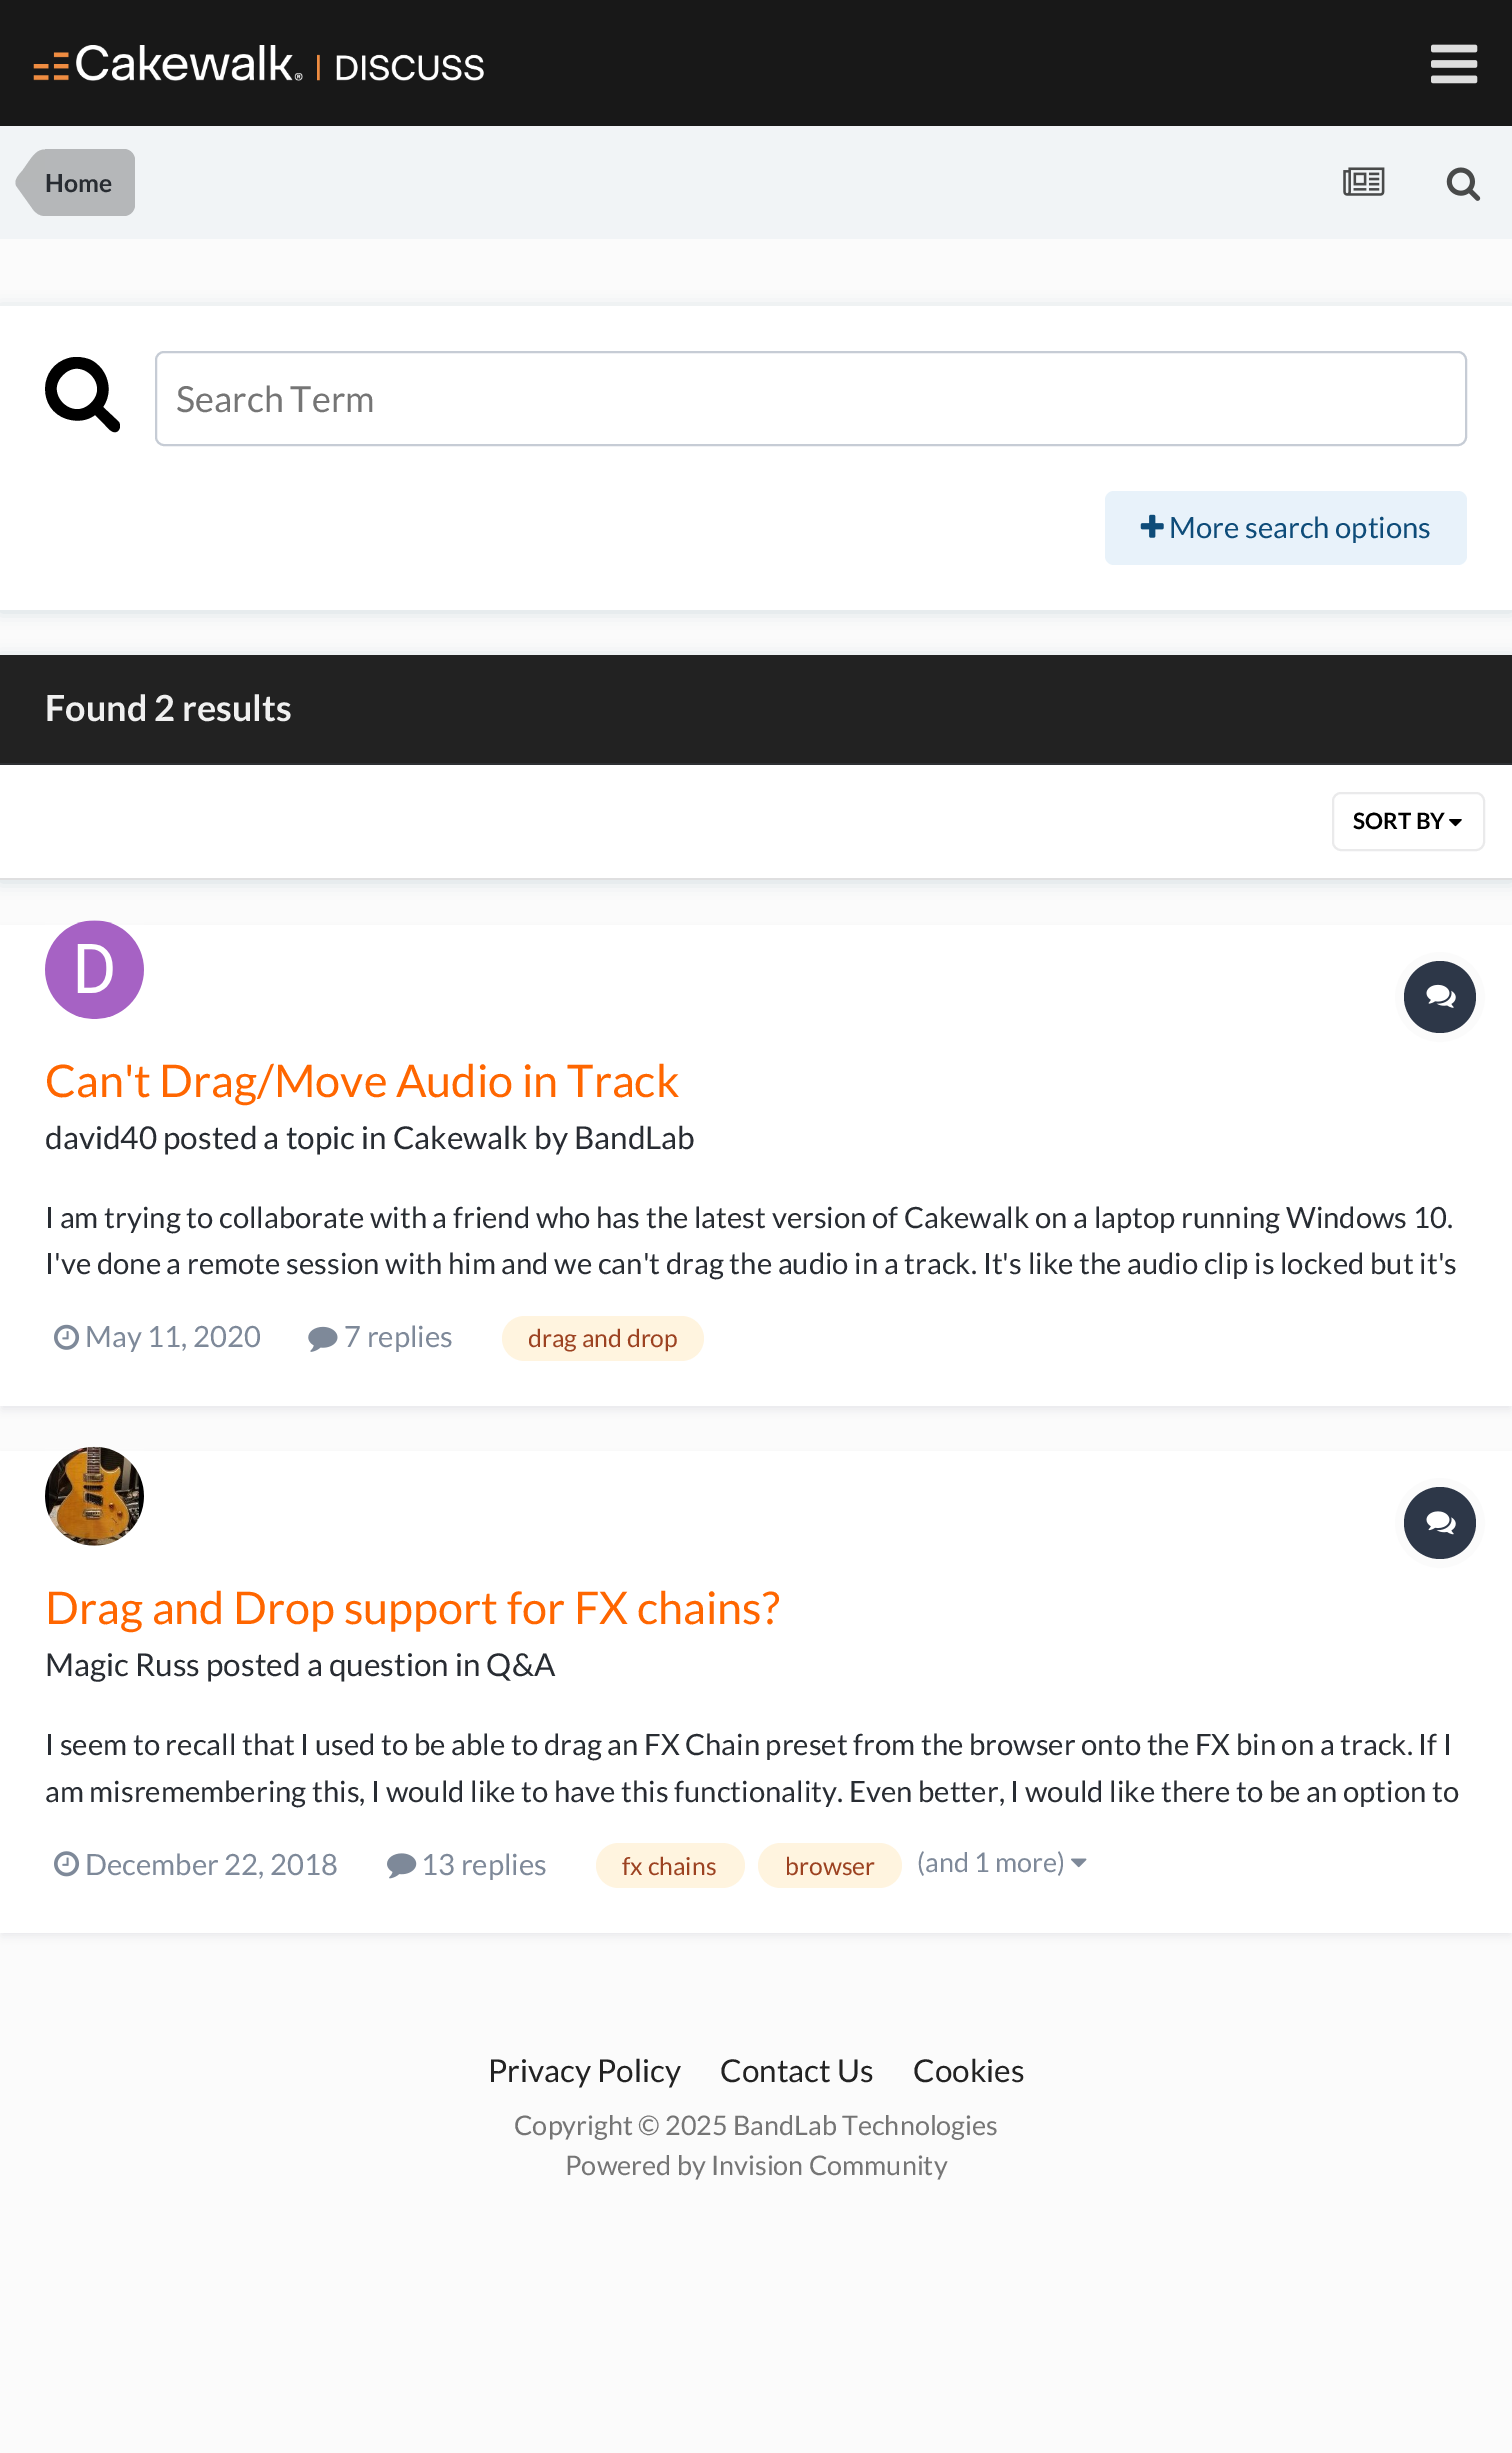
%!PS
<< /PageSize [1512 2453] /PageUsesTransparency true >> setpagedevice
/m/moveto load def
/l/rlineto load def
/c/rcurveto load def
/z/closepath load def
/f/fill load def
/s/stroke load def
/q/gsave load def
/Q_/grestore load def
/w/setlinewidth load def
/C { dup -16 bitshift 255 div exch dup -8 bitshift 255 and 255 div exch 255 and 255 div setrgbcolor } def
/F { [ exch dup neg 0 0 3 -1 roll 0 0 ] selectfont } def
/T { moveto show } def
/R { rectfill } def
/A { dup .setfillconstantalpha .setstrokeconstantalpha } def
/O { newpath 0 360 arc closepath } def
/Q { 5 dict begin { /r /h /w /y /x } { exch def } forall
  x r add y moveto x w add y 2 copy h add r arct x w add y h add x 1 index r arct
  x y h add x y r arct x y 2 copy exch w add exch r arct closepath end } def
/S { 12 dict begin { /a /b /q /h /w /y /x } { exch def } forall gsave /was 0 def
  9 -2 -9 { dup b mul 4 div /e exch def 1 sub .425 mul 2.718 exch exp 1 add a .99 .min exch div /now exch def
    1 1 now sub 1 was sub div sub A /was now def
    w h .min e 2 mul add 0 gt { x e sub y e sub w e 2 mul add h e 2 mul add
      q e add b .6 mul add w h .min 2 div e add .min 0 .max Q fill } if } for grestore end } def
/I { 5 dict begin { /h /w /y /x /name } { exch def } forall
  gsave x y translate w h scale
  w h 8 [w 0 0 h 0 0] name (r) file false 3 colorimage grestore end } def
0 .pushpdf14devicefilter
0 2453 translate 1 -1 scale
4 setmiterlimit
16#FBFBFB C
0 0 1512 2453 R
16#181818 C
0 0 1512 126 R
(1.rgb) 33 45 451 36 I
(2.rgb) 1431 44 47 40 I
16#F1F4F6 C
0 126 1512 113 R
16#B5B7B9 C
45 149 m 79 0 l 6 0 11 5 11 11 c 0 45 l 0 6 -5 11 -11 11 c -79 0 l z f
45 216 m -5 0 -9.5 -2.5 -13 -8 c -15 -21 l -1 -1 -1.5 -2.5 -1.5 -4.5 c 29.5 0 l z f
0.25 A
16#000000 C
45 149.5 m 0 33 l -29.5 0 l 0 -4.5 4.5 -9 7 -12 c 7 -10 l 4 -5.5 8 -11 15.5 -11 c z f
/Lato-Bold 24.75 F
1 A
16#282C32 C
(Home) 45 192 T
(3.rgb) 1343 167 42 29 I
(4.rgb) 1446 167 35 34 I
16#D3DCE2 C
0 308 1512 304 0 8 1 S
16#FFFFFF C
0 306 1512 304 R
16#000000 C
91 403 m 19 -19 -10 -47 -28 -28 c -19 18 9 47 28 28 c z 120 427 m 0 1 -1 3 -2 4 c -5 4 -10 -3 -13 -6 c -10 -10 l -8 6 -18 7 -28 4 c -30 -9 -29 -53 2 -61 c 7 -2 15 -1 22 2 c 17 9 23 31 12 47 c 16 15 l 1 2 1 3 1 5 c z f
16#C6CCD5 C
2 w
156 352 1310 93 8 Q s
/Lato-Regular 36 F
16#757575 C
(Search Term) 176 412 T
16#E8F2FA C
1105 491 362 74 9 Q f
(5.rgb) 1140 514 24 24 I
/Lato-Regular 29.25 F
16#0E4C79 C
(More search options) 1169 538 T
16#D3DCE2 C
0 657 1512 225 0 8 1 S
16#FFFFFF C
0 765 1512 113 R
16#222222 C
0 655 1512 108 R
16#2E3033 C
0 763 1512 2 R
/Lato-Bold 36 F
16#F0F0F0 C
(Found 2 results) 45 721 T
16#DFDFE0 C
0 878 1512 2 R
(6.rgb) 1449 819 13 8 I
16#EAEAEB C
1333 793 151 57 8 Q s
/Lato-Bold 22.5 F
16#000000 C
(SORT BY) 1353 829 T
16#2D3748 C
2 932 1508 477 0 4.5 .1 S
16#FFFFFF C
0 925 1512 481 R
94.5 969.5 49.5 O f
(7.rgb) 45 920 99 99 I
16#FBFBFB C
9 w
1440 997 40.5 O s
16#2D3748 C
1440 997 36 O f
(8.rgb) 1426 984 30 24 I
/Lato-Regular 45 F
16#FF6600 C
(Can't Drag/Move Audio in Track) 45 1097 T
/Lato-Regular 31.5 F
16#282C32 C
(david40 posted a topic in Cakewalk by BandLab) 45 1149 T
/Lato-Regular 29.25 F
(I am trying to collaborate with a friend who has the latest version of Cakewalk on a laptop running Windows 10.) 45 1228 T
(I've done a remote session with him and we can't drag the audio in a track. It's like the audio clip is locked but it's) 45 1274 T
(9.rgb) 54 1324 26 26 I
16#7E8999 C
(May 11, 2020) 85 1347 T
(10.rgb) 308 1326 30 26 I
(7 replies) 344 1347 T
16#FFF4DF C
502 1316 202 45 22.5 Q f
q
529 1316 148 45 rectclip
/Lato-Regular 24.75 F
16#9C4221 C
(drag and drop) 528 1347 T
Q_
16#2D3748 C
2 1458 1508 477 0 4.5 .1 S
16#FFFFFF C
0 1451 1512 482 R
94.5 1496.5 49.5 O f
(11.rgb) 45 1446 99 100 I
16#FBFBFB C
1440 1523 40.5 O s
16#2D3748 C
1440 1523 36 O f
(12.rgb) 1426 1511 30 24 I
/Lato-Regular 45 F
16#FF6600 C
(Drag and Drop support for FX chains?) 45 1624 T
/Lato-Regular 31.5 F
16#282C32 C
(Magic Russ posted a question in Q&A) 45 1676 T
/Lato-Regular 29.25 F
(I seem to recall that I used to be able to drag an FX Chain preset from the browser onto the FX bin on a track. If I) 45 1755 T
(am misremembering this, I would like to have this functionality. Even better, I would like there to be an option to) 45 1802 T
(13.rgb) 54 1851 26 26 I
16#7E8999 C
(December 22, 2018) 85 1875 T
(14.rgb) 387 1853 30 26 I
(13 replies) 421 1875 T
16#FFF4DF C
596 1843 149 45 22.5 Q f
/Lato-Regular 24.75 F
16#9C4221 C
(fx chains) 622 1875 T
16#FFF4DF C
758 1843 144 45 22.5 Q f
16#9C4221 C
(browser) 785 1875 T
/Lato-Regular 27 F
16#7E8999 C
(\(and 1 more\)) 917 1872 T
(15.rgb) 1071 1858 16 10 I
/Lato-Regular 31.5 F
16#222222 C
(Privacy Policy) 488 2082 T
(Contact Us) 720 2082 T
(Cookies) 913 2082 T
/Lato-Regular 27 F
16#757575 C
(Copyright © 2025 BandLab Technologies) 514 2135 T
(Powered by Invision Community) 565 2175 T
.poppdf14devicefilter showpage
